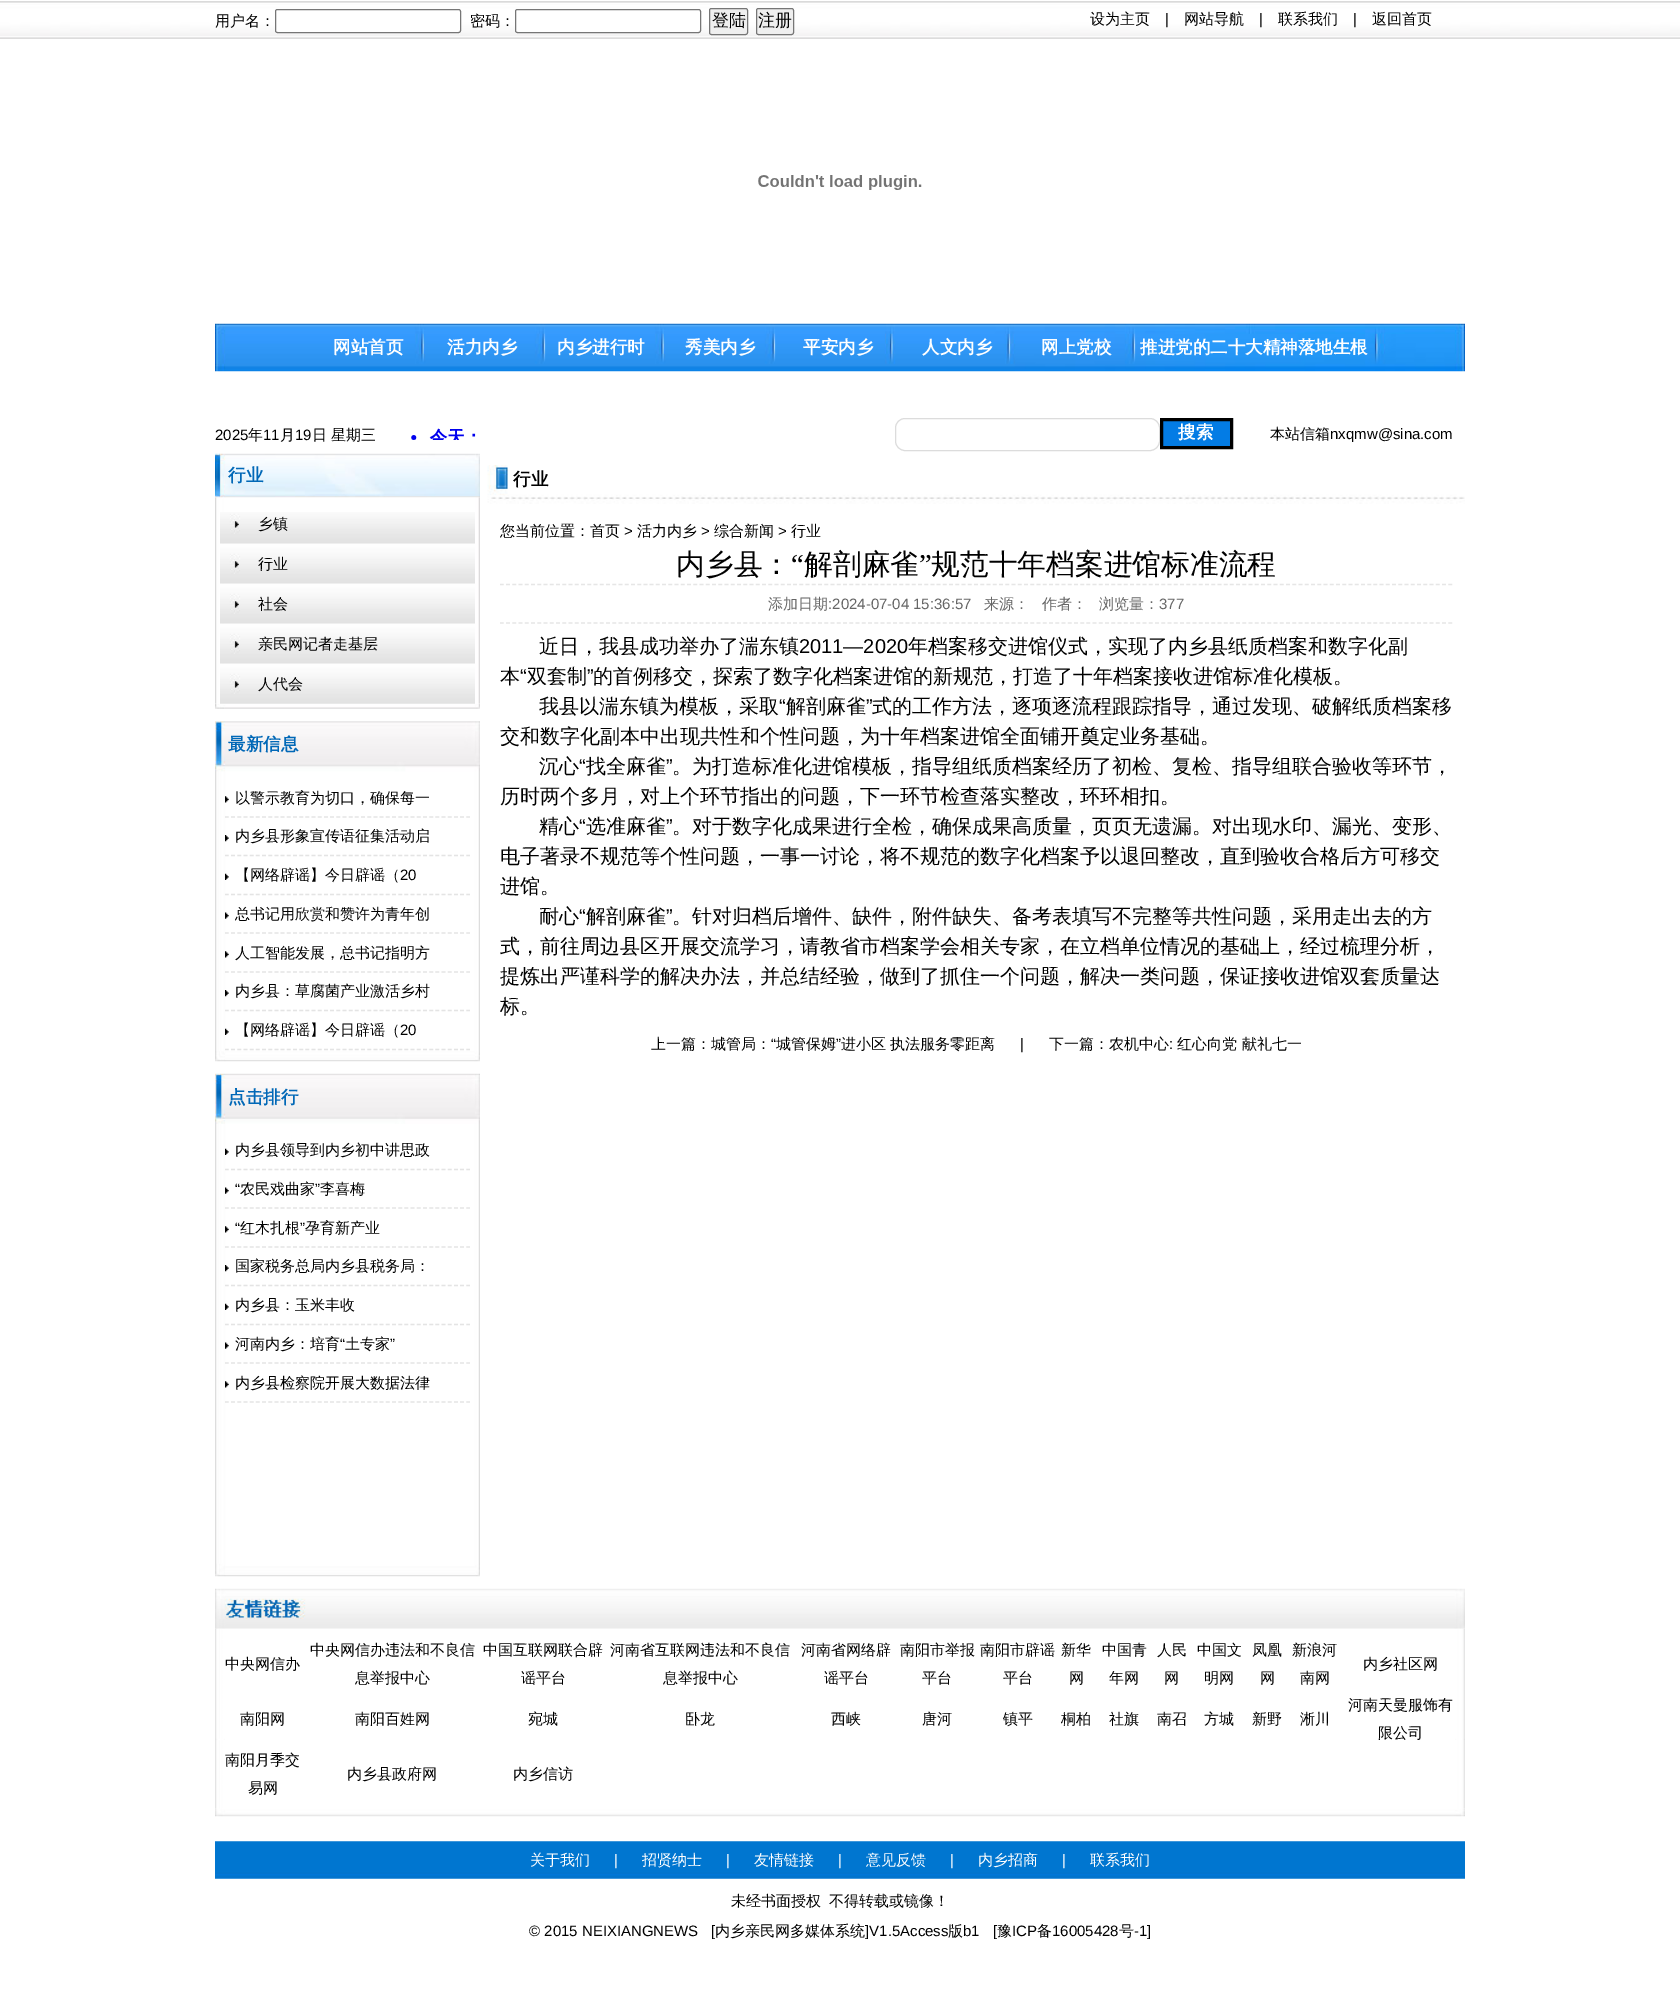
%!PS
<< /PageSize [1680 2015] >> setpagedevice
/m/moveto load def
/l/rlineto load def
/z/closepath load def
/f/fill load def
/s/stroke load def
/q/gsave load def
/Q_/grestore load def
/w/setlinewidth load def
/C { dup -16 bitshift 255 div exch dup -8 bitshift 255 and 255 div exch 255 and 255 div setrgbcolor } def
/F { [ exch dup neg 0 0 3 -1 roll 0 0 ] selectfont } def
/T { moveto show } def
/R { rectfill } def
/Q { 5 dict begin { /r /h /w /y /x } { exch def } forall
  x r add y moveto x w add y 2 copy h add r arct x w add y h add x 1 index r arct
  x y h add x y r arct x y 2 copy exch w add exch r arct closepath end } def
/I { 5 dict begin { /h /w /y /x /name } { exch def } forall
  gsave x y translate w h scale
  w h 8 [w 0 0 h 0 0] name (r) file false 3 colorimage grestore end } def
0 2015 translate 1 -1 scale
4 setmiterlimit
16#FFFFFF C
0 0 1680 2015 R
(1.rgb) 0 1 1680 38 I
/WenQuanYiZenHei-Medium 15 F
16#000000 C
(用户名：) 215 26 T
16#FFFFFF C
275.5 9.5 185 23 2 Q q f Q_
16#767676 C
s
16#000000 C
(密码：) 470 26 T
16#FFFFFF C
515.5 9.5 185 23 2 Q q f Q_
16#767676 C
s
16#EFEFEF C
709.5 8.5 38 26 2 Q q f Q_
16#767676 C
s
/WenQuanYiZenHei-Medium 17 F
16#000000 C
(登陆) 712 26 T
16#EFEFEF C
756.5 8.5 37 26 2 Q q f Q_
16#767676 C
s
16#000000 C
(注册) 758 26 T
/WenQuanYiZenHei-Medium 15 F
(设为主页) 1090 24 T
/LiberationSans-Regular 15 F
(|) 1165 24 T
/WenQuanYiZenHei-Medium 15 F
(网站导航) 1184 24 T
/LiberationSans-Regular 15 F
(|) 1259 24 T
/WenQuanYiZenHei-Medium 15 F
(联系我们) 1278 24 T
/LiberationSans-Regular 15 F
(|) 1353 24 T
/WenQuanYiZenHei-Medium 15 F
(返回首页) 1372 24 T
(2.rgb) 758 175 164 15 I
(3.rgb) 215 323 1250 49 I
/WenQuanYiZenHei-Bold 17.5 F
16#FFFFFF C
(网站首页) 333 353 T
(活力内乡) 447 353 T
(内乡进行时) 557 353 T
(秀美内乡) 685 353 T
(平安内乡) 803 353 T
(人文内乡) 922 353 T
(网上党校) 1041 353 T
(推进党的二十大精神落地生根) 1140 353 T
/LiberationSans-Regular 15 F
16#000000 C
(2025) 215 440 T
/WenQuanYiZenHei-Medium 15 F
(年) 248 440 T
/LiberationSans-Regular 15 F
(11) 263 440 T
/WenQuanYiZenHei-Medium 15 F
(月) 280 440 T
/LiberationSans-Regular 15 F
(19) 295 440 T
/WenQuanYiZenHei-Medium 15 F
(日 星期三) 312 440 T
(4.rgb) 411 428 65 12 I
16#DCDCDC C
895.5 418.5 264 32 9.5 Q s
16#037CE5 C
1161.5 419.5 m 70 0 l 0 28 l -70 0 l z q f Q_
16#000000 C
3 w
s
/WenQuanYiZenHei-Bold 17.5 F
16#FFFFFF C
(搜索) 1178 438 T
/WenQuanYiZenHei-Medium 15 F
16#000000 C
(本站信箱) 1270 439 T
/LiberationSans-Regular 15 F
(nxqmw@sina.com) 1330 439 T
(5.rgb) 215 453 265 45 I
/WenQuanYiZenHei-Bold 17.5 F
16#0168B7 C
(行业) 228 481 T
(6.rgb) 215 497 265 207 I
(7.rgb) 220 512 255 32 I
/WenQuanYiZenHei-Medium 15 F
16#000000 C
(乡镇) 258 529 T
(8.rgb) 220 543 255 41 I
(行业) 258 569 T
(9.rgb) 220 583 255 41 I
(社会) 258 609 T
(8.rgb) 220 623 255 41 I
(亲民网记者走基层) 258 649 T
(8.rgb) 220 663 255 41 I
(人代会) 258 689 T
(10.rgb) 215 704 265 5 I
(11.rgb) 215 721 265 341 I
/WenQuanYiZenHei-Bold 17.5 F
16#0168B7 C
(最新信息) 228 750 T
16#E4E4E4 C
1.2 w
[3.75 2.44] 0 setdash
225 817 m 245 0 l s
(12.rgb) 225 796 4 7 I
/WenQuanYiZenHei-Medium 15 F
16#000000 C
(以警示教育为切口，确保每一) 235 803 T
16#E4E4E4 C
225 855.5 m 245 0 l s
(13.rgb) 225 835 4 7 I
16#000000 C
(内乡县形象宣传语征集活动启) 235 841 T
16#E4E4E4 C
225 894.5 m 245 0 l s
(14.rgb) 225 873 4 7 I
16#000000 C
(【网络辟谣】今日辟谣（) 235 880 T
/LiberationSans-Regular 15 F
(20) 400 880 T
16#E4E4E4 C
225 933 m 245 0 l s
(15.rgb) 225 912 4 7 I
/WenQuanYiZenHei-Medium 15 F
16#000000 C
(总书记用欣赏和赞许为青年创) 235 919 T
16#E4E4E4 C
225 972 m 245 0 l s
(12.rgb) 225 951 4 7 I
16#000000 C
(人工智能发展，总书记指明方) 235 958 T
16#E4E4E4 C
225 1010.5 m 245 0 l s
(13.rgb) 225 990 4 7 I
16#000000 C
(内乡县：草腐菌产业激活乡村) 235 996 T
16#E4E4E4 C
225 1049.5 m 245 0 l s
(14.rgb) 225 1028 4 7 I
16#000000 C
(【网络辟谣】今日辟谣（) 235 1035 T
/LiberationSans-Regular 15 F
(20) 400 1035 T
(16.rgb) 215 1073 265 504 I
/WenQuanYiZenHei-Bold 17.5 F
16#0168B7 C
(点击排行) 228 1103 T
16#E4E4E4 C
225 1169.5 m 245 0 l s
(14.rgb) 225 1148 4 7 I
/WenQuanYiZenHei-Medium 15 F
16#000000 C
(内乡县领导到内乡初中讲思政) 235 1155 T
16#E4E4E4 C
225 1208 m 245 0 l s
/LiberationSans-Regular 15 F
16#000000 C
(“) 235 1194 T
/WenQuanYiZenHei-Medium 15 F
(农民戏曲家) 240 1194 T
/LiberationSans-Regular 15 F
(”) 315 1194 T
/WenQuanYiZenHei-Medium 15 F
(李喜梅) 320 1194 T
(15.rgb) 225 1187 4 7 I
16#E4E4E4 C
225 1247 m 245 0 l s
/LiberationSans-Regular 15 F
16#000000 C
(“) 235 1233 T
/WenQuanYiZenHei-Medium 15 F
(红木扎根) 240 1233 T
/LiberationSans-Regular 15 F
(”) 300 1233 T
/WenQuanYiZenHei-Medium 15 F
(孕育新产业) 305 1233 T
(12.rgb) 225 1226 4 7 I
16#E4E4E4 C
225 1285.5 m 245 0 l s
(13.rgb) 225 1265 4 7 I
16#000000 C
(国家税务总局内乡县税务局：) 235 1271 T
16#E4E4E4 C
225 1324.5 m 245 0 l s
(14.rgb) 225 1303 4 7 I
16#000000 C
(内乡县：玉米丰收) 235 1310 T
16#E4E4E4 C
225 1363 m 245 0 l s
16#000000 C
(河南内乡：培育) 235 1349 T
/LiberationSans-Regular 15 F
(“) 340 1349 T
/WenQuanYiZenHei-Medium 15 F
(土专家) 345 1349 T
/LiberationSans-Regular 15 F
(”) 390 1349 T
(15.rgb) 225 1342 4 7 I
16#E4E4E4 C
225 1402 m 245 0 l s
(12.rgb) 225 1381 4 7 I
/WenQuanYiZenHei-Medium 15 F
16#000000 C
(内乡县检察院开展大数据法律) 235 1388 T
(17.rgb) 487 465 978 39 I
/WenQuanYiZenHei-Bold 17.5 F
(行业) 513 485 T
/WenQuanYiZenHei-Medium 15 F
(您当前位置：首页) 500 536 T
/LiberationSans-Regular 15 F
(>) 624 536 T
/WenQuanYiZenHei-Medium 15 F
(活力内乡) 637 536 T
/LiberationSans-Regular 15 F
(>) 701 536 T
/WenQuanYiZenHei-Medium 15 F
(综合新闻) 714 536 T
/LiberationSans-Regular 15 F
(>) 778 536 T
/WenQuanYiZenHei-Medium 15 F
(行业) 791 536 T
/WenQuanYiZenHei-Medium 28.75 F
(内乡县：) 676 574 T
/LiberationSerif-Regular 28.75 F
(“) 791 574 T
/WenQuanYiZenHei-Medium 28.75 F
(解剖麻雀) 804 574 T
/LiberationSerif-Regular 28.75 F
(”) 919 574 T
/WenQuanYiZenHei-Medium 28.75 F
(规范十年档案进馆标准流程) 931 574 T
16#E6E6E6 C
[3.75 2.49] 0 setdash
500 584.5 m 952.5 0 l s
500 623 m 952.5 0 l s
/WenQuanYiZenHei-Medium 15 F
16#666666 C
(添加日期) 768 609 T
/LiberationSans-Regular 15 F
(:2024-07-04 15:36:57) 828 609 T
/WenQuanYiZenHei-Medium 15 F
(来源：) 984 609 T
(作者：) 1042 609 T
(浏览量：) 1099 609 T
/LiberationSans-Regular 15 F
(377) 1159 609 T
/WenQuanYiZenHei-Medium 20 F
16#000000 C
(近日，我县成功举办了湍东镇) 539 653 T
/LiberationSans-Regular 20 F
(2011—2020) 799 653 T
/WenQuanYiZenHei-Medium 20 F
(年档案移交进馆仪式，实现了内乡县纸质档案和数字化副) 908 653 T
(本) 500 683 T
/LiberationSans-Regular 20 F
(“) 520 683 T
/WenQuanYiZenHei-Medium 20 F
(双套制) 527 683 T
/LiberationSans-Regular 20 F
(”) 587 683 T
/WenQuanYiZenHei-Medium 20 F
(的首例移交，探索了数字化档案进馆的新规范，打造了十年档案接收进馆标准化模板。) 593 683 T
(我县以湍东镇为模板，采取) 539 713 T
/LiberationSans-Regular 20 F
(“) 779 713 T
/WenQuanYiZenHei-Medium 20 F
(解剖麻雀) 786 713 T
/LiberationSans-Regular 20 F
(”) 866 713 T
/WenQuanYiZenHei-Medium 20 F
(式的工作方法，逐项逐流程跟踪指导，通过发现、破解纸质档案移) 872 713 T
(交和数字化副本中出现共性和个性问题，为十年档案进馆全面铺开奠定业务基础。) 500 743 T
(沉心) 539 773 T
/LiberationSans-Regular 20 F
(“) 579 773 T
/WenQuanYiZenHei-Medium 20 F
(找全麻雀) 586 773 T
/LiberationSans-Regular 20 F
(”) 666 773 T
/WenQuanYiZenHei-Medium 20 F
(。为打造标准化进馆模板，指导组纸质档案经历了初检、复检、指导组联合验收等环节，) 672 773 T
(历时两个多月，对上个环节指出的问题，下一环节检查落实整改，环环相扣。) 500 803 T
(精心) 539 833 T
/LiberationSans-Regular 20 F
(“) 579 833 T
/WenQuanYiZenHei-Medium 20 F
(选准麻雀) 586 833 T
/LiberationSans-Regular 20 F
(”) 666 833 T
/WenQuanYiZenHei-Medium 20 F
(。对于数字化成果进行全检，确保成果高质量，页页无遗漏。对出现水印、漏光、变形、) 672 833 T
(电子著录不规范等个性问题，一事一讨论，将不规范的数字化档案予以退回整改，直到验收合格后方可移交) 500 863 T
(进馆。) 500 893 T
(耐心) 539 923 T
/LiberationSans-Regular 20 F
(“) 579 923 T
/WenQuanYiZenHei-Medium 20 F
(解剖麻雀) 586 923 T
/LiberationSans-Regular 20 F
(”) 666 923 T
/WenQuanYiZenHei-Medium 20 F
(。针对归档后增件、缺件，附件缺失、备考表填写不完整等共性问题，采用走出去的方) 672 923 T
(式，前往周边县区开展交流学习，请教省市档案学会相关专家，在立档单位情况的基础上，经过梳理分析，) 500 953 T
(提炼出严谨科学的解决办法，并总结经验，做到了抓住一个问题，解决一类问题，保证接收进馆双套质量达) 500 983 T
(标。) 500 1013 T
/WenQuanYiZenHei-Medium 15 F
(上一篇：城管局：) 651 1049 T
/LiberationSans-Regular 15 F
(“) 771 1049 T
/WenQuanYiZenHei-Medium 15 F
(城管保姆) 776 1049 T
/LiberationSans-Regular 15 F
(”) 836 1049 T
/WenQuanYiZenHei-Medium 15 F
(进小区) 841 1049 T
(执法服务零距离) 890 1049 T
/LiberationSans-Regular 15 F
(|) 1020 1049 T
/WenQuanYiZenHei-Medium 15 F
(下一篇：农机中心) 1049 1049 T
/LiberationSans-Regular 15 F
(:) 1169 1049 T
/WenQuanYiZenHei-Medium 15 F
(红心向党) 1177 1049 T
(献礼七一) 1242 1049 T
(18.rgb) 215 1588 1250 41 I
(19.rgb) 215 1628 1250 181 I
(中央网信办) 225 1669 T
(中央网信办违法和不良信) 310 1655 T
(息举报中心) 355 1683 T
(中国互联网联合辟) 483 1655 T
(谣平台) 521 1683 T
(河南省互联网违法和不良信) 610 1655 T
(息举报中心) 663 1683 T
(河南省网络辟) 801 1655 T
(谣平台) 824 1683 T
(南阳市举报) 900 1655 T
(平台) 922 1683 T
(南阳市辟谣) 980 1655 T
(平台) 1003 1683 T
(新华) 1061 1655 T
(网) 1069 1683 T
(中国青) 1102 1655 T
(年网) 1109 1683 T
(人民) 1157 1655 T
(网) 1164 1683 T
(中国文) 1197 1655 T
(明网) 1204 1683 T
(凤凰) 1252 1655 T
(网) 1260 1683 T
(新浪河) 1292 1655 T
(南网) 1300 1683 T
(内乡社区网) 1363 1669 T
(南阳网) 240 1724 T
(南阳百姓网) 355 1724 T
(宛城) 528 1724 T
(卧龙) 685 1724 T
(西峡) 831 1724 T
(唐河) 922 1724 T
(镇平) 1003 1724 T
(桐柏) 1061 1724 T
(社旗) 1109 1724 T
(南召) 1157 1724 T
(方城) 1204 1724 T
(新野) 1252 1724 T
(淅川) 1300 1724 T
(河南天曼服饰有) 1348 1710 T
(限公司) 1378 1738 T
(南阳月季交) 225 1765 T
(易网) 248 1793 T
(内乡县政府网) 347 1779 T
(内乡信访) 513 1779 T
(20.rgb) 215 1809 1250 8 I
(21.rgb) 215 1841 1250 38 I
16#FFFFFF C
(关于我们) 530 1865 T
/LiberationSans-Regular 15 F
(|) 614 1865 T
/WenQuanYiZenHei-Medium 15 F
(招贤纳士) 642 1865 T
/LiberationSans-Regular 15 F
(|) 726 1865 T
/WenQuanYiZenHei-Medium 15 F
(友情链接) 754 1865 T
/LiberationSans-Regular 15 F
(|) 838 1865 T
/WenQuanYiZenHei-Medium 15 F
(意见反馈) 866 1865 T
/LiberationSans-Regular 15 F
(|) 950 1865 T
/WenQuanYiZenHei-Medium 15 F
(内乡招商) 978 1865 T
/LiberationSans-Regular 15 F
(|) 1062 1865 T
/WenQuanYiZenHei-Medium 15 F
(联系我们) 1090 1865 T
16#000000 C
(未经书面授权) 731 1906 T
(不得转载或镜像！) 829 1906 T
/LiberationSans-Regular 15 F
(© 2015 NEIXIANGNEWS   [) 529 1936 T
/WenQuanYiZenHei-Medium 15 F
(内乡亲民网多媒体系统) 715 1936 T
/LiberationSans-Regular 15 F
(]V1.5Access) 865 1936 T
/WenQuanYiZenHei-Medium 15 F
(版) 948 1936 T
/LiberationSans-Regular 15 F
(b1) 963 1936 T
([) 993 1936 T
/WenQuanYiZenHei-Medium 15 F
(豫) 997 1936 T
/LiberationSans-Regular 15 F
(ICP) 1012 1936 T
/WenQuanYiZenHei-Medium 15 F
(备) 1037 1936 T
/LiberationSans-Regular 15 F
(16005428) 1052 1936 T
/WenQuanYiZenHei-Medium 15 F
(号) 1119 1936 T
/LiberationSans-Regular 15 F
(-1]) 1134 1936 T
showpage
